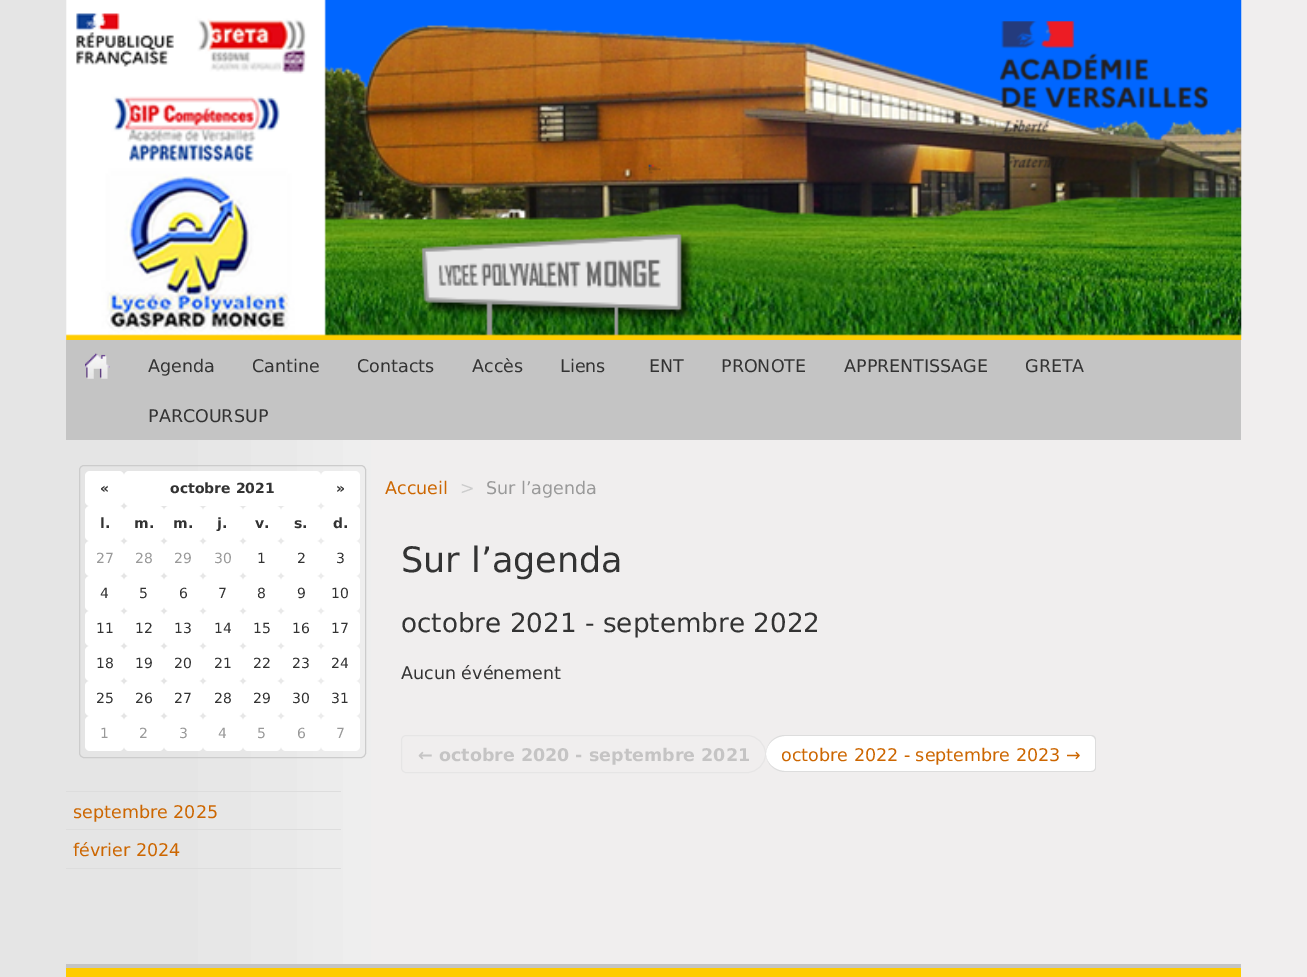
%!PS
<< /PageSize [1307 977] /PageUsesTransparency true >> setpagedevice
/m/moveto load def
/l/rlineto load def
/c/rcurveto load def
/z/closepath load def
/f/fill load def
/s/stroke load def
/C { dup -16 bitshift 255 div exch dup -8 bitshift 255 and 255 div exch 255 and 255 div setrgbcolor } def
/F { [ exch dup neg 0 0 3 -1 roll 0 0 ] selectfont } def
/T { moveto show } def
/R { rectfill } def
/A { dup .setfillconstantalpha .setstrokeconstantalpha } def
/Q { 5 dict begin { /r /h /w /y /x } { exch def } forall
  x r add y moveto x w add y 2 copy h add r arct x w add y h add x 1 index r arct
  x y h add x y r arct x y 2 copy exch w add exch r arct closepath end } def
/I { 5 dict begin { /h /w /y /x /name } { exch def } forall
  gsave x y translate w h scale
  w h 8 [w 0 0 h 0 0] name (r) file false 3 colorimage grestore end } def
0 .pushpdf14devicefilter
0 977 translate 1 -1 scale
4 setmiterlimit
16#DDDDDD C
0 0 1307 977 R
(1.rgb) 0 0 1307 977 I
(2.rgb) 66 0 1176 340 I
(3.rgb) 999 21 209 147 I
16#C4C4C4 C
66 340 1175 100 R
(4.rgb) 85 353 25 26 I
/DejaVuSans-Regular 17.5 F
16#333333 C
(Agenda) 148 372 T
(Cantine) 252 372 T
(Contacts) 357 372 T
(Accès) 472 372 T
(Liens) 560 372 T
(ENT) 649 372 T
(PRONOTE) 721 372 T
(APPRENTISSAGE) 844 372 T
(GRETA) 1025 372 T
(PARCOURSUP) 148 422 T
16#CCCCCC C
79.5 465.5 286 292 4.5 Q s
16#FFFFFF C
85 471 39 35 5 Q f
/DejaVuSans-Bold 14 F
16#333333 C
(«) 100 493 T
16#FFFFFF C
124 471 197 35 5 Q f
16#333333 C
(octobre 2021) 170 493 T
16#FFFFFF C
321 471 39 35 5 Q f
16#333333 C
(») 336 493 T
16#FFFFFF C
85 506 39 35 5 Q f
16#333333 C
(l.) 100 528 T
16#FFFFFF C
124 506 40 35 5 Q f
16#333333 C
(m.) 134 528 T
16#FFFFFF C
164 506 39 35 5 Q f
16#333333 C
(m.) 173 528 T
16#FFFFFF C
203 506 40 35 5 Q f
16#333333 C
(j.) 217 528 T
16#FFFFFF C
243 506 38 35 5 Q f
16#333333 C
(v.) 255 528 T
16#FFFFFF C
281 506 40 35 5 Q f
16#333333 C
(s.) 294 528 T
16#FFFFFF C
321 506 39 35 5 Q f
16#333333 C
(d.) 333 528 T
16#FFFFFF C
85 541 39 35 5 Q f
/DejaVuSans-Regular 14 F
16#999999 C
(27) 96 563 T
16#FFFFFF C
124 541 40 35 5 Q f
16#999999 C
(28) 135 563 T
16#FFFFFF C
164 541 39 35 5 Q f
16#999999 C
(29) 174 563 T
16#FFFFFF C
203 541 40 35 5 Q f
16#999999 C
(30) 214 563 T
16#FFFFFF C
243 541 38 35 5 Q f
16#333333 C
(1) 257 563 T
16#FFFFFF C
281 541 40 35 5 Q f
16#333333 C
(2) 297 563 T
16#FFFFFF C
321 541 39 35 5 Q f
16#333333 C
(3) 336 563 T
16#FFFFFF C
85 576 39 35 5 Q f
16#333333 C
(4) 100 598 T
16#FFFFFF C
124 576 40 35 5 Q f
16#333333 C
(5) 139 598 T
16#FFFFFF C
164 576 39 35 5 Q f
16#333333 C
(6) 179 598 T
16#FFFFFF C
203 576 40 35 5 Q f
16#333333 C
(7) 218 598 T
16#FFFFFF C
243 576 38 35 5 Q f
16#333333 C
(8) 257 598 T
16#FFFFFF C
281 576 40 35 5 Q f
16#333333 C
(9) 297 598 T
16#FFFFFF C
321 576 39 35 5 Q f
16#333333 C
(10) 331 598 T
16#FFFFFF C
85 611 39 35 5 Q f
16#333333 C
(11) 96 633 T
16#FFFFFF C
124 611 40 35 5 Q f
16#333333 C
(12) 135 633 T
16#FFFFFF C
164 611 39 35 5 Q f
16#333333 C
(13) 174 633 T
16#FFFFFF C
203 611 40 35 5 Q f
16#333333 C
(14) 214 633 T
16#FFFFFF C
243 611 38 35 5 Q f
16#333333 C
(15) 253 633 T
16#FFFFFF C
281 611 40 35 5 Q f
16#333333 C
(16) 292 633 T
16#FFFFFF C
321 611 39 35 5 Q f
16#333333 C
(17) 331 633 T
16#FFFFFF C
85 646 39 35 5 Q f
16#333333 C
(18) 96 668 T
16#FFFFFF C
124 646 40 35 5 Q f
16#333333 C
(19) 135 668 T
16#FFFFFF C
164 646 39 35 5 Q f
16#333333 C
(20) 174 668 T
16#FFFFFF C
203 646 40 35 5 Q f
16#333333 C
(21) 214 668 T
16#FFFFFF C
243 646 38 35 5 Q f
16#333333 C
(22) 253 668 T
16#FFFFFF C
281 646 40 35 5 Q f
16#333333 C
(23) 292 668 T
16#FFFFFF C
321 646 39 35 5 Q f
16#333333 C
(24) 331 668 T
16#FFFFFF C
85 681 39 35 5 Q f
16#333333 C
(25) 96 703 T
16#FFFFFF C
124 681 40 35 5 Q f
16#333333 C
(26) 135 703 T
16#FFFFFF C
164 681 39 35 5 Q f
16#333333 C
(27) 174 703 T
16#FFFFFF C
203 681 40 35 5 Q f
16#333333 C
(28) 214 703 T
16#FFFFFF C
243 681 38 35 5 Q f
16#333333 C
(29) 253 703 T
16#FFFFFF C
281 681 40 35 5 Q f
16#333333 C
(30) 292 703 T
16#FFFFFF C
321 681 39 35 5 Q f
16#333333 C
(31) 331 703 T
16#FFFFFF C
85 716 39 35 5 Q f
16#999999 C
(1) 100 738 T
16#FFFFFF C
124 716 40 35 5 Q f
16#999999 C
(2) 139 738 T
16#FFFFFF C
164 716 39 35 5 Q f
16#999999 C
(3) 179 738 T
16#FFFFFF C
203 716 40 35 5 Q f
16#999999 C
(4) 218 738 T
16#FFFFFF C
243 716 38 35 5 Q f
16#999999 C
(5) 257 738 T
16#FFFFFF C
281 716 40 35 5 Q f
16#999999 C
(6) 297 738 T
16#FFFFFF C
321 716 39 35 5 Q f
16#999999 C
(7) 336 738 T
16#DDDDDD C
66 791 275 1 R
/DejaVuSans-Regular 17.5 F
16#CC6600 C
(septembre 2025) 73 818 T
16#DDDDDD C
66 829 275 1 R
66 868 275 1 R
16#CC6600 C
(février 2024) 73 856 T
(Accueil) 385 494 T
16#CCCCCC C
(>) 460 494 T
16#999999 C
(Sur l’agenda) 486 494 T
/DejaVuSans-Regular 35 F
16#333333 C
(Sur l’agenda) 401 572 T
/DejaVuSans-Regular 26.25 F
(octobre 2021 - septembre 2022) 401 632 T
/DejaVuSans-Regular 17.5 F
(Aucun événement) 401 679 T
0.5 A
16#DDDDDD C
406 735.5 m 341 0 l 10 0 18.5 8.5 18.5 18.5 c 0 10 -8.5 18.5 -18.5 18.5 c -341 0 l -2.5 0 -4.5 -2 -4.5 -4.5 c 0 -28 l 0 -2.5 2 -4.5 4.5 -4.5 c z s
/DejaVuSans-Bold 17.5 F
1 A
16#C5C4C4 C
(← octobre 2020 - septembre 2021) 418 761 T
16#FFFFFF C
785 736 m 306 0 l 2 0 4 2 4 4 c 0 28 l 0 2 -2 3 -4 3 c -306 0 l -10 0 -19 -8 -19 -17 c 0 -10 9 -18 19 -18 c z f
16#DDDDDD C
785 735 m 306 0 l 3 0 5 2 5 5 c 0 28 l 0 2 -2 4 -5 4 c -306 0 l -10 0 -19 -8 -19 -18 c 0 -11 9 -19 19 -19 c z 785 736 m 306 0 l 2 0 4 2 4 4 c 0 28 l 0 2 -2 3 -4 3 c -306 0 l -10 0 -19 -8 -19 -17 c 0 -10 9 -18 19 -18 c z eofill
/DejaVuSans-Regular 17.5 F
16#CC6600 C
(octobre 2022 - septembre 2023 →) 781 761 T
16#FFCC00 C
66 968 1175 9 R
16#C4C4C4 C
66 964 1175 4 R
.poppdf14devicefilter showpage
